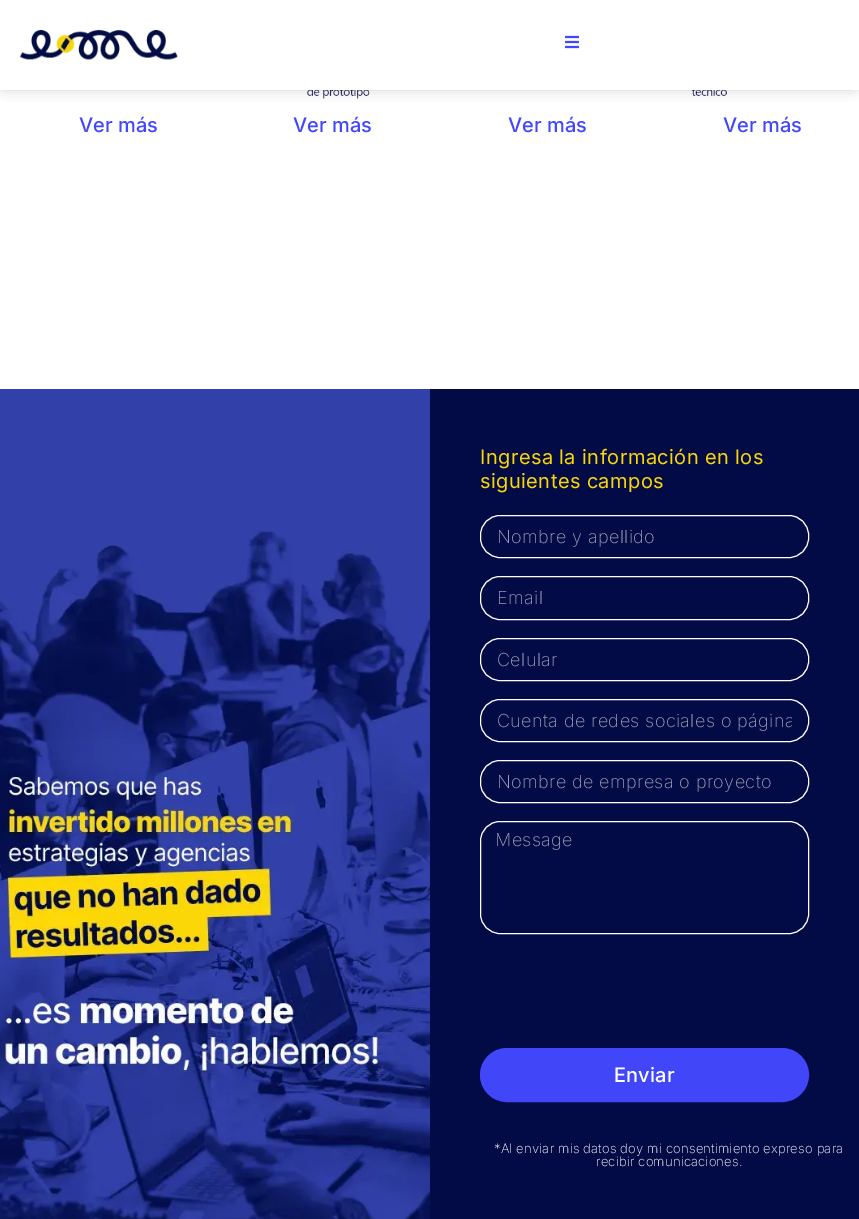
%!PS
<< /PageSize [859 1219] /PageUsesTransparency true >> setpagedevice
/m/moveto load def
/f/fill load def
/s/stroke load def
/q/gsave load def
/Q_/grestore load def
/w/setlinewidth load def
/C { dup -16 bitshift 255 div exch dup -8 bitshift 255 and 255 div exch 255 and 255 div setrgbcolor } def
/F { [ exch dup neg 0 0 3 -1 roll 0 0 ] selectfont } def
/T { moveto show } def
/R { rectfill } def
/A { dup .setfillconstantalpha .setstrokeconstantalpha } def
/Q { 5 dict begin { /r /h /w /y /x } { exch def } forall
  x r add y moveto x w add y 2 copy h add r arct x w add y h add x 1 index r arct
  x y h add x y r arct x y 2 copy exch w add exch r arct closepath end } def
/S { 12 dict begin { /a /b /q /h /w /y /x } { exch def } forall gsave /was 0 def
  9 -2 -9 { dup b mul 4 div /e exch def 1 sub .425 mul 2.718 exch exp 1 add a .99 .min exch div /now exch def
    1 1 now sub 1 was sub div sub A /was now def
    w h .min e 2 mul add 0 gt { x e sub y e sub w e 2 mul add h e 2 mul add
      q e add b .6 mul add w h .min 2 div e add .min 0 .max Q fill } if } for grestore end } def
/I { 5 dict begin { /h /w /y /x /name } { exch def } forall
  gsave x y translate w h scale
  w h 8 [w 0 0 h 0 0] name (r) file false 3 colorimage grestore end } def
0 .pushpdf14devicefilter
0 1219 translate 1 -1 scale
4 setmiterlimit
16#FFFFFF C
0 0 859 1219 R
(3.rgb) 307 90 420 9 I
16#000000 C
5 5 849 80 0 7.5 .38 S
16#FFFFFF C
0 0 859 90 R
(1.rgb) 20 30 158 30 I
(2.rgb) 565 35 14 14 I
/Inter-Medium 20 F
16#4147FD C
(Ver más) 79 132 T
(Ver más) 293 132 T
(Ver más) 508 132 T
(Ver más) 723 132 T
(4.rgb) 0 389 430 830 I
16#030B46 C
430 389 429 830 R
/Inter-Regular 20 F
16#F9D607 C
480 464 m .4 0 (Ingresa la información en los) ashow
480 488 m .4 0 (siguientes campos) ashow
16#FFFFFF C
480.5 515.5 328 42 19.5 Q s
/Inter-ExtraLight 18 F
16#9A9DB5 C
497 543 m .4 0 (Nombre y apellido) ashow
16#FFFFFF C
480.5 576.5 328 43 19.5 Q s
16#9A9DB5 C
497 604 m .4 0 (Email) ashow
16#FFFFFF C
480.5 638.5 328 42 19.5 Q s
16#9A9DB5 C
497 666 m .4 0 (Celular) ashow
16#FFFFFF C
480.5 699.5 328 42 19.5 Q s
q
497 710 295 21 rectclip
16#9A9DB5 C
497 727 m .4 0 (Cuenta de redes sociales o página) ashow
Q_
480.5 760.5 328 42 19.5 Q s
16#9A9DB5 C
497 788 m .4 0 (Nombre de empresa o proyecto) ashow
16#FFFFFF C
480.5 821.5 328 112 19.5 Q s
16#9A9DB5 C
495 846 m .4 0 (Message) ashow
16#4147F8 C
481 1049 327 52 26 Q q f Q_
2 w
s
/Inter-Medium 20 F
16#FFFFFF C
614 1082 m .2 0 (Enviar) ashow
/Inter-ExtraLight 13 F
494 1153 m .2 0 (*Al enviar mis datos doy mi consentimiento expreso para) ashow
596 1166 m .2 0 (recibir comunicaciones.) ashow
.poppdf14devicefilter showpage
